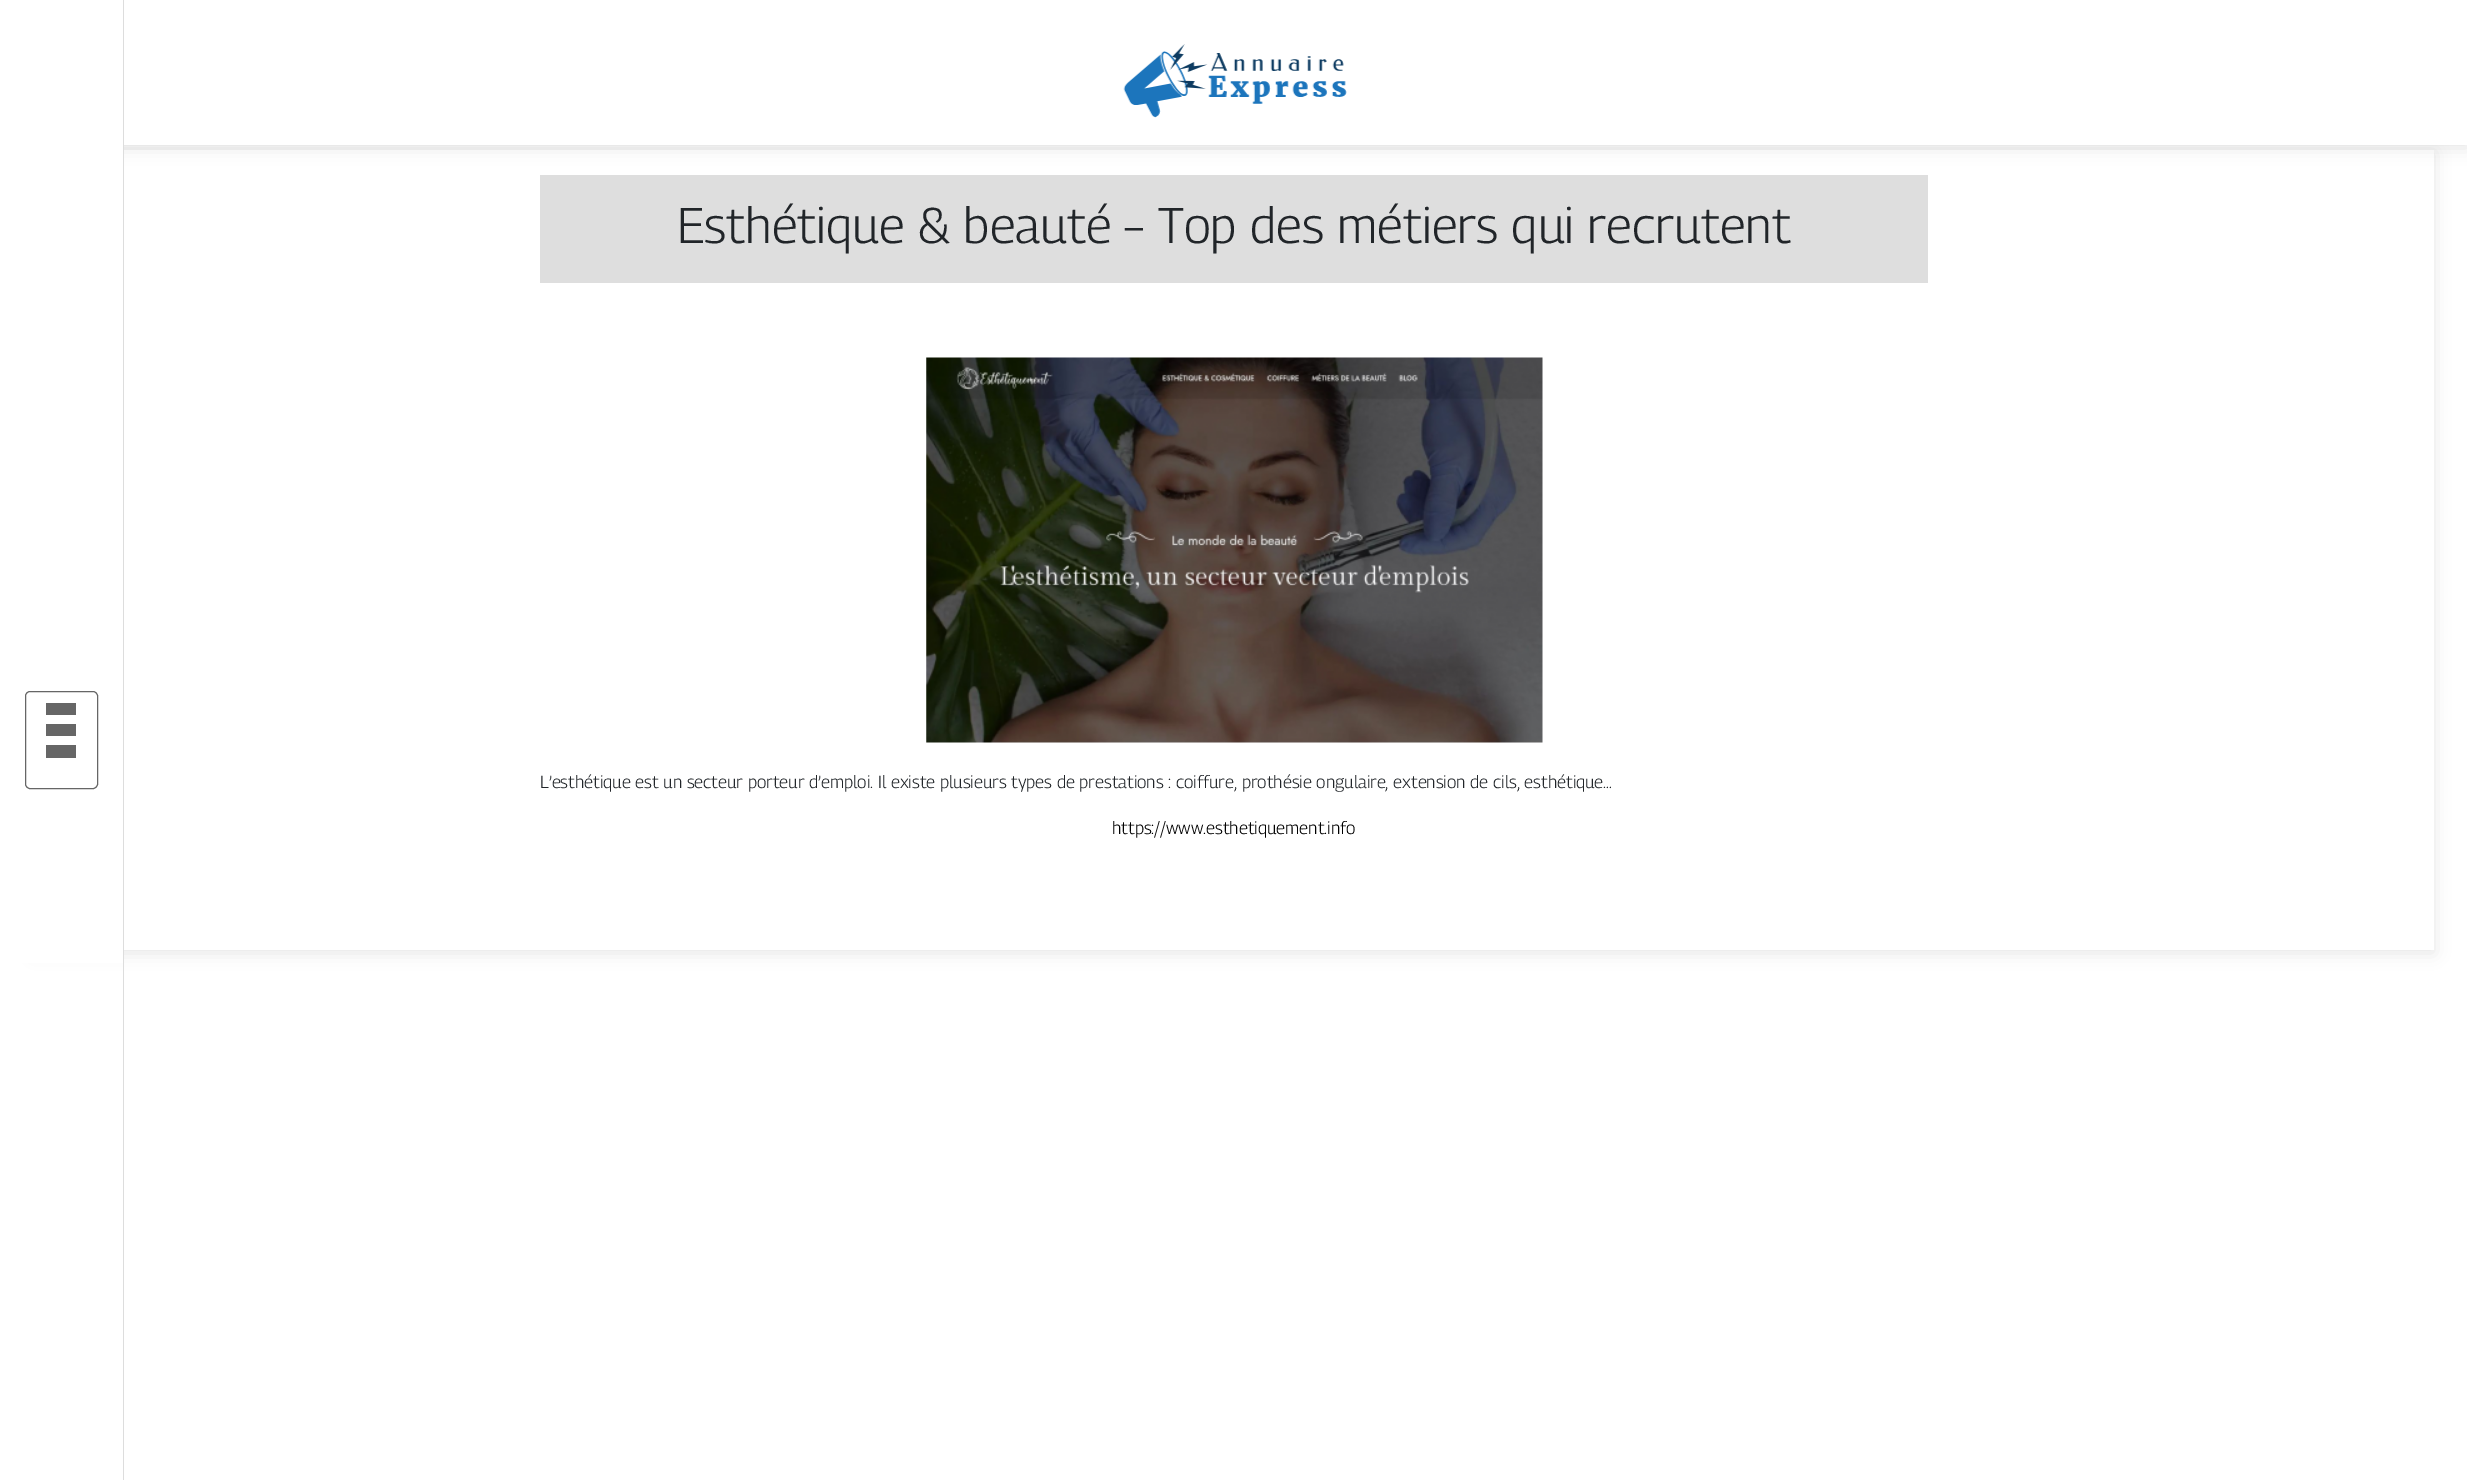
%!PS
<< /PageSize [2467 1480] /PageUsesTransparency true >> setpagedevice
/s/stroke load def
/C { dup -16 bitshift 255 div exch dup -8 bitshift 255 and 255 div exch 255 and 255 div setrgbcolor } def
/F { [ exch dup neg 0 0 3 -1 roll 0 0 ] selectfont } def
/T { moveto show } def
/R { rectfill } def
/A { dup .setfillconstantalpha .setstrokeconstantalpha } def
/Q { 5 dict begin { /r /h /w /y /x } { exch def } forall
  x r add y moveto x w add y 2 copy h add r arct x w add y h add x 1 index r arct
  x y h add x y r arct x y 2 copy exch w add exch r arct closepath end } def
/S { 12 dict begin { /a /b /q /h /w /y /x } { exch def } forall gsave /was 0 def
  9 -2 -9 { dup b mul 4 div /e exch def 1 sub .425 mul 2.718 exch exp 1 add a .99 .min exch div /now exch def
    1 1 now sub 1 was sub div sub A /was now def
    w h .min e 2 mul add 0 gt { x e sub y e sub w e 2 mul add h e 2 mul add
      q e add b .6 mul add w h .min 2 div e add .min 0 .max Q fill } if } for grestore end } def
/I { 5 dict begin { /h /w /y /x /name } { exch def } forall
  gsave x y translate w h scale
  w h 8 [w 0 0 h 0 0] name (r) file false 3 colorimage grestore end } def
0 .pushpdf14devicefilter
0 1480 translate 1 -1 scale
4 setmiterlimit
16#FFFFFF C
0 0 2467 1480 R
16#000000 C
34 153 2400 800 0 8 .1 S
16#FFFFFF C
124 150 2310 800 R
16#000000 C
0 3 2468 145 0 8 .1 S
16#FFFFFF C
124 0 2343 145 R
0 0 123 963 R
16#DDDDDD C
123 0 1 1480 R
16#666666 C
25.5 691.5 72 97 4.5 Q s
46 703 30 12 R
46 724 30 12 R
46 745 30 13 R
(1.rgb) 1123 44 224 74 I
16#DEDEDE C
540 175 1388 108 R
/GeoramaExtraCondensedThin-Thin 50 F
16#212529 C
(Esthétique & beauté – Top des métiers qui recrutent) 677 243 T
(2.rgb) 926 357 617 386 I
/GeoramaExtraCondensedThin-Thin 17.5 F
(L’esthétique est un secteur porteur d’emploi. Il existe plusieurs types de prestations : coiffure, prothésie ongulaire, extension de cils, esthétique…) 540 788 T
16#000000 C
(https://www.esthetiquement.info) 1112 834 T
.poppdf14devicefilter showpage
